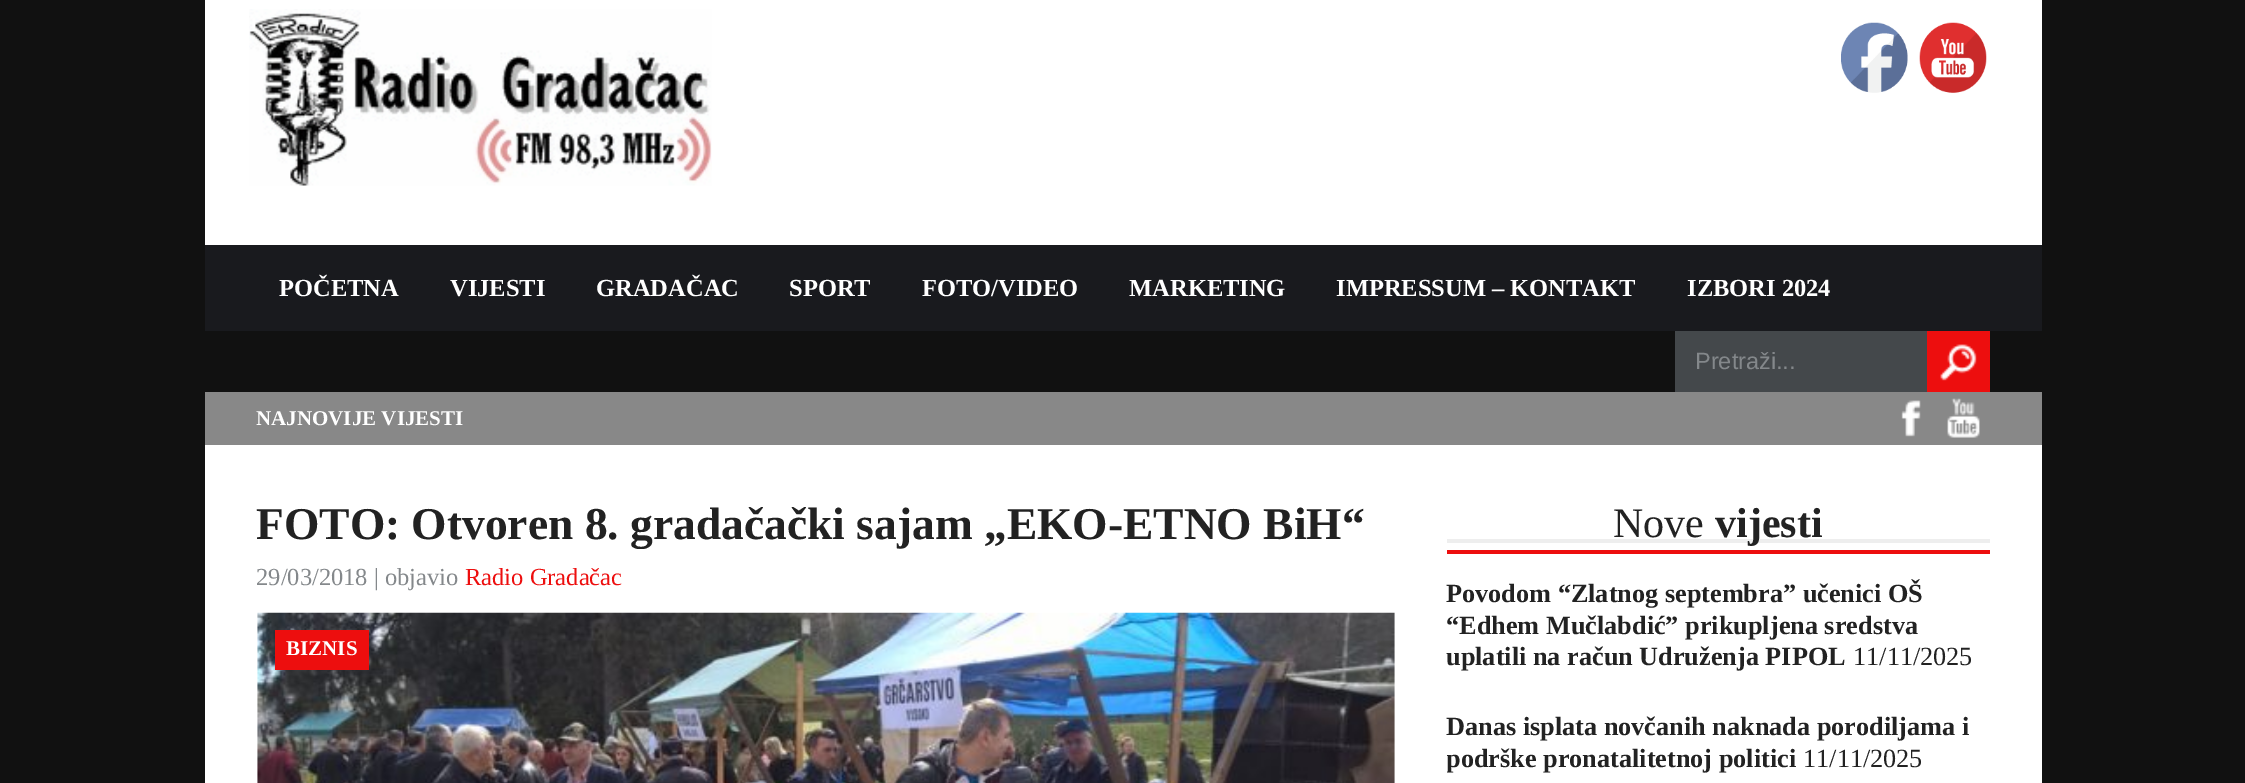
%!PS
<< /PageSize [2245 783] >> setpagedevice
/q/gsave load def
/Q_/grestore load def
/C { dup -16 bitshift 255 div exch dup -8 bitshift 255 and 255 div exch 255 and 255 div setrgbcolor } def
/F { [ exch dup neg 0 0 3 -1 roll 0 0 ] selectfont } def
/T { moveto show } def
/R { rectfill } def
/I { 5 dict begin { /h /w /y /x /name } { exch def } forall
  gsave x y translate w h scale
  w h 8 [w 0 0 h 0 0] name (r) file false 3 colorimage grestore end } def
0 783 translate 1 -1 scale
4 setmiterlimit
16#111111 C
0 0 2245 783 R
16#FFFFFF C
205 0 1837 245 R
(1.rgb) 249 9 463 177 I
(2.rgb) 1841 22 67 71 I
(3.rgb) 1919 22 68 71 I
16#191A1E C
205 245 1837 86 R
/LiberationSerif-Bold 24.5 F
16#FFFFFF C
(POČETNA) 279 296 T
(VIJESTI) 450 296 T
(GRADAČAC) 596 296 T
(SPORT) 789 296 T
(FOTO/VIDEO) 922 296 T
(MARKETING) 1129 296 T
(IMPRESSUM – KONTAKT) 1336 296 T
(IZBORI 2024) 1687 296 T
16#44484B C
1675 331 252 61 R
/LiberationSans-Regular 23.5 F
16#84888B C
(Pretraži...) 1695 369 T
16#ED0E0E C
1927 331 63 61 R
(4.rgb) 1940 344 37 37 I
16#888888 C
205 392 1837 53 R
/LiberationSerif-Bold 21 F
16#FFFFFF C
(NAJNOVIJE VIJESTI) 256 425 T
(5.rgb) 1901 400 20 37 I
(6.rgb) 1947 398 33 40 I
205 445 1837 338 R
/LiberationSerif-Bold 45.5 F
16#222222 C
(FOTO: Otvoren 8. gradačački sajam „EKO-ETNO BiH“) 256 539 T
/LiberationSerif-Regular 24.5 F
16#84888B C
(29/03/2018 | objavio) 256 585 T
16#ED0E0E C
(Radio Gradačac) 465 585 T
(7.rgb) 257 612 1138 171 I
275 630 94 40 R
/LiberationSerif-Bold 21 F
16#FFFFFF C
(BIZNIS) 286 655 T
16#EEEEEE C
1447 539 543 4 R
16#ED0E0E C
1447 550 543 4 R
/LiberationSerif-Regular 42 F
16#222222 C
(Nove) 1613 537 T
/LiberationSerif-Bold 42 F
(vijesti) 1715 537 T
/LiberationSerif-Bold 26.25 F
(Povodom “Zlatnog septembra” učenici OŠ) 1446 602 T
(“Edhem Mučlabdić” prikupljena sredstva) 1446 634 T
(uplatili na račun Udruženja PIPOL) 1446 665 T
/LiberationSerif-Regular 26.25 F
(11/11/2025) 1853 665 T
/LiberationSerif-Bold 26.25 F
(Danas isplata novčanih naknada porodiljama i) 1446 735 T
q
1447 578 543 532 rectclip
(podrške pronatalitetnoj politici) 1446 767 T
Q_
/LiberationSerif-Regular 26.25 F
(11/11/2025) 1803 767 T
showpage
